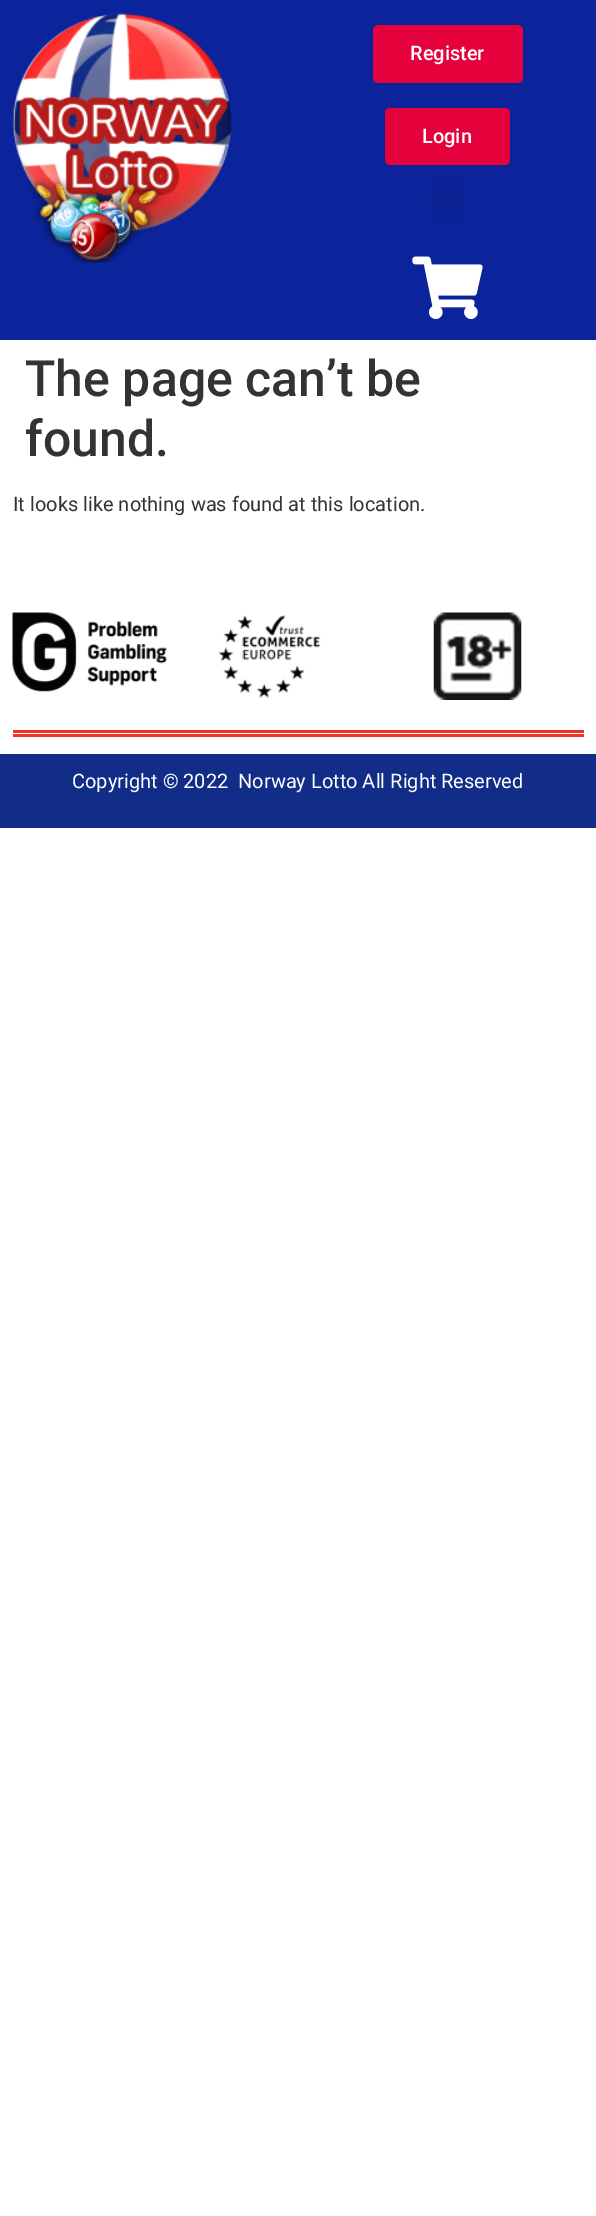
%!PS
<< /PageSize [596 2216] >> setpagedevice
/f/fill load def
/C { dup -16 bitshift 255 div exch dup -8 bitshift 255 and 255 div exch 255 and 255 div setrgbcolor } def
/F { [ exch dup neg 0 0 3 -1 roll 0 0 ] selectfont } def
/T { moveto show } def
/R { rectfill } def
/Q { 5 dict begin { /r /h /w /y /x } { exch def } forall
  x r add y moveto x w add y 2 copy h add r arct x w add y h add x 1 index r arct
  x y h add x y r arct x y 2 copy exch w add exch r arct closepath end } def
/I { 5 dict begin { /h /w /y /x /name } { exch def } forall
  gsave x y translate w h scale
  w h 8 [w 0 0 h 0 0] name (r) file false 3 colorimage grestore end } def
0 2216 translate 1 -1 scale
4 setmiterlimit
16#FFFFFF C
0 0 596 2216 R
16#0B249B C
0 0 596 340 R
(1.rgb) 12 13 220 250 I
16#E5013B C
373 25 150 58 5 Q f
/Roboto-Medium 20 F
16#FFFFFF C
(Register) 410 60 T
16#E5013B C
385 108 125 57 5 Q f
16#FFFFFF C
(Login) 422 143 T
16#0A2293 C
430 178 35 41 4 Q f
(2.rgb) 412 256 71 64 I
/Roboto-Medium 50 F
16#333333 C
(The page can’t be) 25 396 T
(found.) 25 456 T
/Roboto-Regular 20 F
(It looks like nothing was found at this location.) 13 511 T
(3.rgb) 12 612 155 80 I
(4.rgb) 218 615 103 83 I
(5.rgb) 433 612 89 88 I
16#EE3124 C
13 730 571 3 R
13 734 571 3 R
16#122D88 C
0 754 596 74 R
16#FFFFFF C
(Copyright © 2022  Norway Lotto All Right Reserved) 72 788 T
showpage
